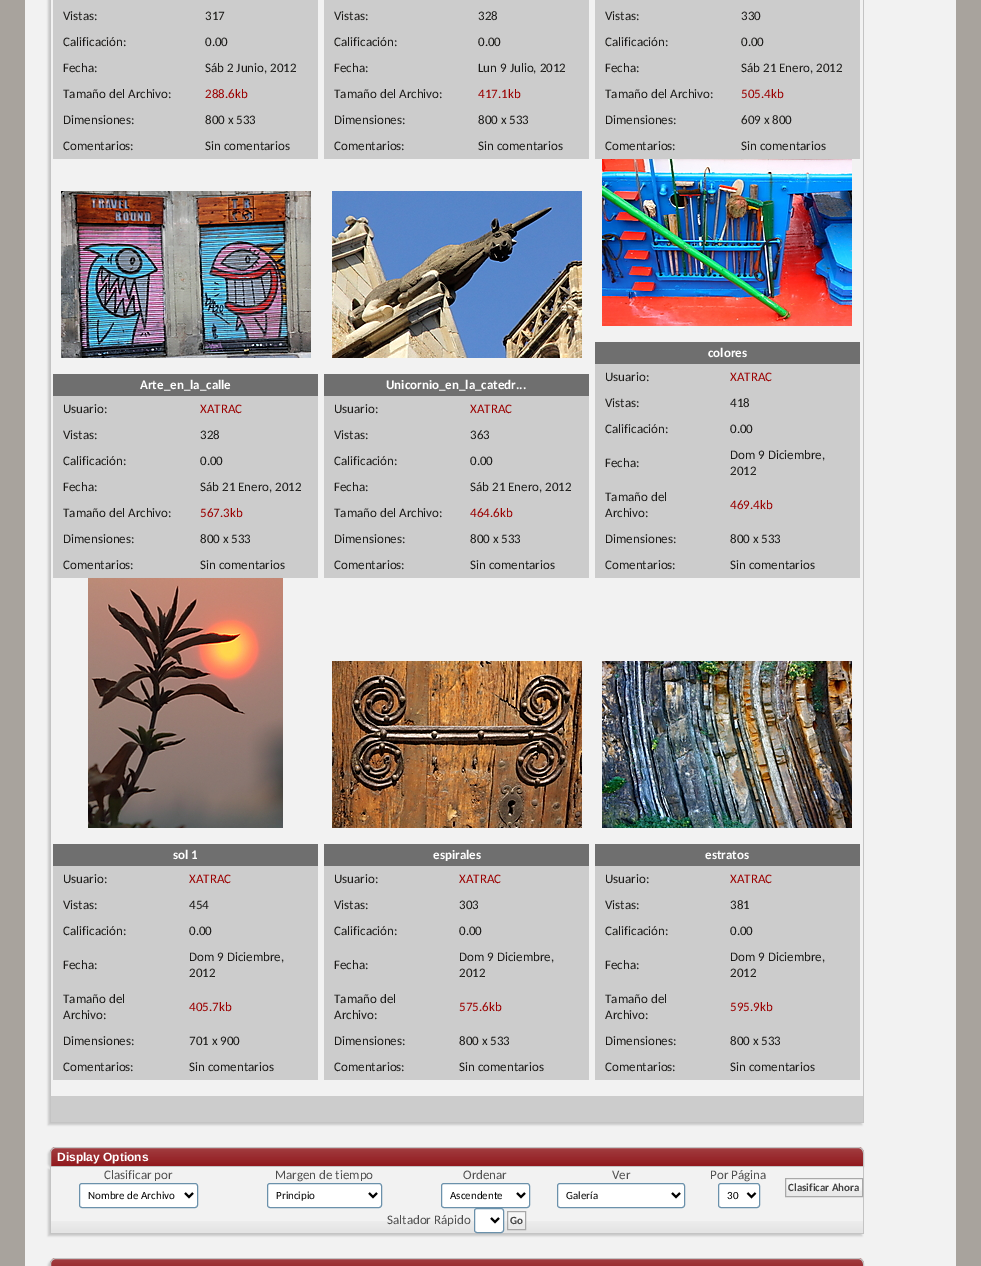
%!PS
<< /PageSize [981 1266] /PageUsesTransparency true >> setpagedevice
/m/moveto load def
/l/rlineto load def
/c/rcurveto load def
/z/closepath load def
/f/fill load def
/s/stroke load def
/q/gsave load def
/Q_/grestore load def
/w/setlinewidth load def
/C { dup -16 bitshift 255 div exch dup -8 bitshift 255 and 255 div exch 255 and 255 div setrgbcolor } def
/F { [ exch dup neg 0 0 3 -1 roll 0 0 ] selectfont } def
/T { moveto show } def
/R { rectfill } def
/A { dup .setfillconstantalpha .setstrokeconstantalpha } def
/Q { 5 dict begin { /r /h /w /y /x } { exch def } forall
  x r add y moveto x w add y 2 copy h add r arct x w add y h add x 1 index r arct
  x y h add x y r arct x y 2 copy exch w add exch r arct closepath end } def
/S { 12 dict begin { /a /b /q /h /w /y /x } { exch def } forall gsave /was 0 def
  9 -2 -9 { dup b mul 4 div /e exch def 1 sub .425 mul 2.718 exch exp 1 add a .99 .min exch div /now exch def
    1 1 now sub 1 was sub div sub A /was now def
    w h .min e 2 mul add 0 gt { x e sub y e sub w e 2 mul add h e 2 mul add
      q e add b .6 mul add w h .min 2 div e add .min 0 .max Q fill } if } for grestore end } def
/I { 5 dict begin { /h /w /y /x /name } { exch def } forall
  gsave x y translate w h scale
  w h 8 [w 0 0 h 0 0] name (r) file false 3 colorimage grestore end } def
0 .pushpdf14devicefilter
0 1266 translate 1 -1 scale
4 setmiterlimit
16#A8A39D C
0 0 981 1266 R
16#F2F2F2 C
25 0 931 1266 R
q
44 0 m 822 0 l 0 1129 l -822 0 l z 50 -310 m 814 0 l 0 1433 l -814 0 l z eoclip newpath
16#C8C8C8 C
48 -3 814 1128 0 1 1 S
Q_
16#C4C4C4 C
863 0 1 1123 R
50 1122 814 1 R
50 0 1 1123 R
16#CCCCCC C
53 0 265 3 R
53 3 265 26 R
/Carlito-Regular 13 F
16#1A1917 C
(Vistas:) 63 20 T
(317) 205 20 T
16#CCCCCC C
53 29 265 26 R
16#1A1917 C
(Calificación:) 63 46 T
(0.00) 205 46 T
16#CCCCCC C
53 55 265 26 R
16#1A1917 C
(Fecha:) 63 72 T
(Sáb 2 Junio, 2012) 205 72 T
16#CCCCCC C
53 81 265 26 R
16#1A1917 C
(Tamaño del Archivo:) 63 98 T
16#9A0000 C
(288.6kb) 205 98 T
16#CCCCCC C
53 107 265 26 R
16#1A1917 C
(Dimensiones:) 63 124 T
(800 x 533) 205 124 T
16#CCCCCC C
53 133 265 26 R
16#1A1917 C
(Comentarios:) 63 150 T
(Sin comentarios) 205 150 T
16#CCCCCC C
324 0 265 3 R
324 3 265 26 R
16#1A1917 C
(Vistas:) 334 20 T
(328) 478 20 T
16#CCCCCC C
324 29 265 26 R
16#1A1917 C
(Calificación:) 334 46 T
(0.00) 478 46 T
16#CCCCCC C
324 55 265 26 R
16#1A1917 C
(Fecha:) 334 72 T
(Lun 9 Julio, 2012) 478 72 T
16#CCCCCC C
324 81 265 26 R
16#1A1917 C
(Tamaño del Archivo:) 334 98 T
16#9A0000 C
(417.1kb) 478 98 T
16#CCCCCC C
324 107 265 26 R
16#1A1917 C
(Dimensiones:) 334 124 T
(800 x 533) 478 124 T
16#CCCCCC C
324 133 265 26 R
16#1A1917 C
(Comentarios:) 334 150 T
(Sin comentarios) 478 150 T
16#CCCCCC C
595 0 265 3 R
595 3 265 26 R
16#1A1917 C
(Vistas:) 605 20 T
(330) 741 20 T
16#CCCCCC C
595 29 265 26 R
16#1A1917 C
(Calificación:) 605 46 T
(0.00) 741 46 T
16#CCCCCC C
595 55 265 26 R
16#1A1917 C
(Fecha:) 605 72 T
(Sáb 21 Enero, 2012) 741 72 T
16#CCCCCC C
595 81 265 26 R
16#1A1917 C
(Tamaño del Archivo:) 605 98 T
16#9A0000 C
(505.4kb) 741 98 T
16#CCCCCC C
595 107 265 26 R
16#1A1917 C
(Dimensiones:) 605 124 T
(609 x 800) 741 124 T
16#CCCCCC C
595 133 265 26 R
16#1A1917 C
(Comentarios:) 605 150 T
(Sin comentarios) 741 150 T
(1.rgb) 61 191 250 167 I
16#6F6F6F C
53 374 265 22 R
/Carlito-Bold 13 F
16#FFFFFF C
(Arte_en_la_calle) 140 389 T
16#CCCCCC C
53 396 265 26 R
/Carlito-Regular 13 F
16#1A1917 C
(Usuario:) 63 413 T
16#9A0000 C
(XATRAC) 200 413 T
16#CCCCCC C
53 422 265 26 R
16#1A1917 C
(Vistas:) 63 439 T
(328) 200 439 T
16#CCCCCC C
53 448 265 26 R
16#1A1917 C
(Calificación:) 63 465 T
(0.00) 200 465 T
16#CCCCCC C
53 474 265 26 R
16#1A1917 C
(Fecha:) 63 491 T
(Sáb 21 Enero, 2012) 200 491 T
16#CCCCCC C
53 500 265 26 R
16#1A1917 C
(Tamaño del Archivo:) 63 517 T
16#9A0000 C
(567.3kb) 200 517 T
16#CCCCCC C
53 526 265 26 R
16#1A1917 C
(Dimensiones:) 63 543 T
(800 x 533) 200 543 T
16#CCCCCC C
53 552 265 26 R
16#1A1917 C
(Comentarios:) 63 569 T
(Sin comentarios) 200 569 T
(2.rgb) 332 191 250 167 I
16#6F6F6F C
324 374 265 22 R
/Carlito-Bold 13 F
16#FFFFFF C
(Unicornio_en_la_catedr...) 386 389 T
16#CCCCCC C
324 396 265 26 R
/Carlito-Regular 13 F
16#1A1917 C
(Usuario:) 334 413 T
16#9A0000 C
(XATRAC) 470 413 T
16#CCCCCC C
324 422 265 26 R
16#1A1917 C
(Vistas:) 334 439 T
(363) 470 439 T
16#CCCCCC C
324 448 265 26 R
16#1A1917 C
(Calificación:) 334 465 T
(0.00) 470 465 T
16#CCCCCC C
324 474 265 26 R
16#1A1917 C
(Fecha:) 334 491 T
(Sáb 21 Enero, 2012) 470 491 T
16#CCCCCC C
324 500 265 26 R
16#1A1917 C
(Tamaño del Archivo:) 334 517 T
16#9A0000 C
(464.6kb) 470 517 T
16#CCCCCC C
324 526 265 26 R
16#1A1917 C
(Dimensiones:) 334 543 T
(800 x 533) 470 543 T
16#CCCCCC C
324 552 265 26 R
16#1A1917 C
(Comentarios:) 334 569 T
(Sin comentarios) 470 569 T
(3.rgb) 602 159 250 167 I
16#6F6F6F C
595 342 265 22 R
/Carlito-Bold 13 F
16#FFFFFF C
(colores) 708 357 T
16#CCCCCC C
595 364 265 26 R
/Carlito-Regular 13 F
16#1A1917 C
(Usuario:) 605 381 T
16#9A0000 C
(XATRAC) 730 381 T
16#CCCCCC C
595 390 265 26 R
16#1A1917 C
(Vistas:) 605 407 T
(418) 730 407 T
16#CCCCCC C
595 416 265 26 R
16#1A1917 C
(Calificación:) 605 433 T
(0.00) 730 433 T
16#CCCCCC C
595 442 265 42 R
16#1A1917 C
(Fecha:) 605 467 T
(Dom 9 Diciembre,) 730 459 T
(2012) 730 475 T
16#CCCCCC C
595 484 265 42 R
16#1A1917 C
(Tamaño del) 605 501 T
(Archivo:) 605 517 T
16#9A0000 C
(469.4kb) 730 509 T
16#CCCCCC C
595 526 265 26 R
16#1A1917 C
(Dimensiones:) 605 543 T
(800 x 533) 730 543 T
16#CCCCCC C
595 552 265 26 R
16#1A1917 C
(Comentarios:) 605 569 T
(Sin comentarios) 730 569 T
(4.rgb) 88 578 195 250 I
16#6F6F6F C
53 844 265 22 R
/Carlito-Bold 13 F
16#FFFFFF C
(sol 1) 173 859 T
16#CCCCCC C
53 866 265 26 R
/Carlito-Regular 13 F
16#1A1917 C
(Usuario:) 63 883 T
16#9A0000 C
(XATRAC) 189 883 T
16#CCCCCC C
53 892 265 26 R
16#1A1917 C
(Vistas:) 63 909 T
(454) 189 909 T
16#CCCCCC C
53 918 265 26 R
16#1A1917 C
(Calificación:) 63 935 T
(0.00) 189 935 T
16#CCCCCC C
53 944 265 42 R
16#1A1917 C
(Fecha:) 63 969 T
(Dom 9 Diciembre,) 189 961 T
(2012) 189 977 T
16#CCCCCC C
53 986 265 42 R
16#1A1917 C
(Tamaño del) 63 1003 T
(Archivo:) 63 1019 T
16#9A0000 C
(405.7kb) 189 1011 T
16#CCCCCC C
53 1028 265 26 R
16#1A1917 C
(Dimensiones:) 63 1045 T
(701 x 900) 189 1045 T
16#CCCCCC C
53 1054 265 26 R
16#1A1917 C
(Comentarios:) 63 1071 T
(Sin comentarios) 189 1071 T
(5.rgb) 332 661 250 167 I
16#6F6F6F C
324 844 265 22 R
/Carlito-Bold 13 F
16#FFFFFF C
(espirales) 433 859 T
16#CCCCCC C
324 866 265 26 R
/Carlito-Regular 13 F
16#1A1917 C
(Usuario:) 334 883 T
16#9A0000 C
(XATRAC) 459 883 T
16#CCCCCC C
324 892 265 26 R
16#1A1917 C
(Vistas:) 334 909 T
(303) 459 909 T
16#CCCCCC C
324 918 265 26 R
16#1A1917 C
(Calificación:) 334 935 T
(0.00) 459 935 T
16#CCCCCC C
324 944 265 42 R
16#1A1917 C
(Fecha:) 334 969 T
(Dom 9 Diciembre,) 459 961 T
(2012) 459 977 T
16#CCCCCC C
324 986 265 42 R
16#1A1917 C
(Tamaño del) 334 1003 T
(Archivo:) 334 1019 T
16#9A0000 C
(575.6kb) 459 1011 T
16#CCCCCC C
324 1028 265 26 R
16#1A1917 C
(Dimensiones:) 334 1045 T
(800 x 533) 459 1045 T
16#CCCCCC C
324 1054 265 26 R
16#1A1917 C
(Comentarios:) 334 1071 T
(Sin comentarios) 459 1071 T
(6.rgb) 602 661 250 167 I
16#6F6F6F C
595 844 265 22 R
/Carlito-Bold 13 F
16#FFFFFF C
(estratos) 705 859 T
16#CCCCCC C
595 866 265 26 R
/Carlito-Regular 13 F
16#1A1917 C
(Usuario:) 605 883 T
16#9A0000 C
(XATRAC) 730 883 T
16#CCCCCC C
595 892 265 26 R
16#1A1917 C
(Vistas:) 605 909 T
(381) 730 909 T
16#CCCCCC C
595 918 265 26 R
16#1A1917 C
(Calificación:) 605 935 T
(0.00) 730 935 T
16#CCCCCC C
595 944 265 42 R
16#1A1917 C
(Fecha:) 605 969 T
(Dom 9 Diciembre,) 730 961 T
(2012) 730 977 T
16#CCCCCC C
595 986 265 42 R
16#1A1917 C
(Tamaño del) 605 1003 T
(Archivo:) 605 1019 T
16#9A0000 C
(595.9kb) 730 1011 T
16#CCCCCC C
595 1028 265 26 R
16#1A1917 C
(Dimensiones:) 605 1045 T
(800 x 533) 730 1045 T
16#CCCCCC C
595 1054 265 26 R
16#1A1917 C
(Comentarios:) 605 1071 T
(Sin comentarios) 730 1071 T
16#CCCCCC C
51 1096 812 26 R
16#C8C8C8 C
48 1149 814 20 6 1 1 S
16#8B0E12 C
56 1147 m 802 0 l 3.5 0 6 2.5 6 6 c 0 14 l -814 0 l 0 -14 l 0 -3.5 2.5 -6 6 -6 c z f
(7.rgb) 50 1148 814 18 I
16#C4C4C4 C
56 1147.5 m 802 0 l 3 0 5.5 2.5 5.5 5.5 c 0 13.5 l -813 0 l 0 -13.5 l 0 -3 2.5 -5.5 5.5 -5.5 c z s
/LiberationSans-Bold 12 F
16#FFFFFF C
(Display Options) 57 1161 T
16#C8C8C8 C
48 1169 814 67 0 1 1 S
16#F2F2F2 C
51 1167 812 66 R
(8.rgb) 51 1221 812 12 I
16#C4C4C4 C
863 1167 1 67 R
50 1233 814 1 R
50 1167 1 67 R
/Carlito-Regular 13 F
16#4E4E4E C
(Clasificar por) 104 1179 T
16#FFFFFF C
79.5 1183.5 118 24 2.5 Q q f Q_
16#6B91AB C
s
16#000000 C
2 w
185 1193 m 4 4 l 4 -4 l s
/Carlito-Regular 11 F
(Nombre de Archivo) 88 1199 T
/Carlito-Regular 13 F
16#4E4E4E C
(Margen de tiempo) 275 1179 T
16#FFFFFF C
267.5 1183.5 114 24 2.5 Q q f Q_
16#6B91AB C
1 w
s
16#000000 C
2 w
369 1193 m 4 4 l 4 -4 l s
/Carlito-Regular 11 F
(Principio) 276 1199 T
/Carlito-Regular 13 F
16#4E4E4E C
(Ordenar) 463 1179 T
16#FFFFFF C
441.5 1183.5 88 24 2.5 Q q f Q_
16#6B91AB C
1 w
s
16#000000 C
2 w
517 1193 m 4 4 l 4 -4 l s
/Carlito-Regular 11 F
(Ascendente) 450 1199 T
/Carlito-Regular 13 F
16#4E4E4E C
(Ver) 612 1179 T
16#FFFFFF C
557.5 1183.5 127 24 2.5 Q q f Q_
16#6B91AB C
1 w
s
16#000000 C
2 w
672 1193 m 4 4 l 4 -4 l s
/Carlito-Regular 11 F
(Galería) 566 1199 T
/Carlito-Regular 13 F
16#4E4E4E C
(Por Página) 710 1179 T
16#FFFFFF C
718.5 1183.5 41 24 2.5 Q q f Q_
16#6B91AB C
1 w
s
16#000000 C
2 w
747.5 1193 m 4 4 l 4 -4 l s
/Carlito-Regular 11 F
(30) 727 1199 T
16#E9E9E9 C
786 1179 76 17 R
(9.rgb) 786 1179 76 12 I
16#A8A8A8 C
1 w
785.5 1178.5 77 18 rectstroke
/Carlito-Bold 11 F
16#424242 C
(Clasificar Ahora) 788 1191 T
/Carlito-Regular 13 F
16#4E4E4E C
(Saltador Rápido) 387 1224 T
16#FFFFFF C
474.5 1208.5 29 24 2.5 Q q f Q_
16#6B91AB C
s
16#000000 C
2 w
491 1218 m 4 4 l 4 -4 l s
16#E9E9E9 C
508 1212 17 17 R
(10.rgb) 508 1212 17 12 I
16#A8A8A8 C
1 w
507.5 1211.5 18 18 rectstroke
/Carlito-Bold 11 F
16#424242 C
(Go) 510 1224 T
16#C8C8C8 C
48 1260 814 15 6 1 1 S
16#8B0E12 C
56 1258 m 802 0 l 3.5 0 6 2.5 6 6 c 0 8 l -814 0 l 0 -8 l 0 -3.5 2.5 -6 6 -6 c z f
(11.rgb) 50 1259 814 7 I
16#C4C4C4 C
56 1258.5 m 802 0 l 3 0 5.5 2.5 5.5 5.5 c 0 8.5 l -813 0 l 0 -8.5 l 0 -3 2.5 -5.5 5.5 -5.5 c z s
.poppdf14devicefilter showpage
